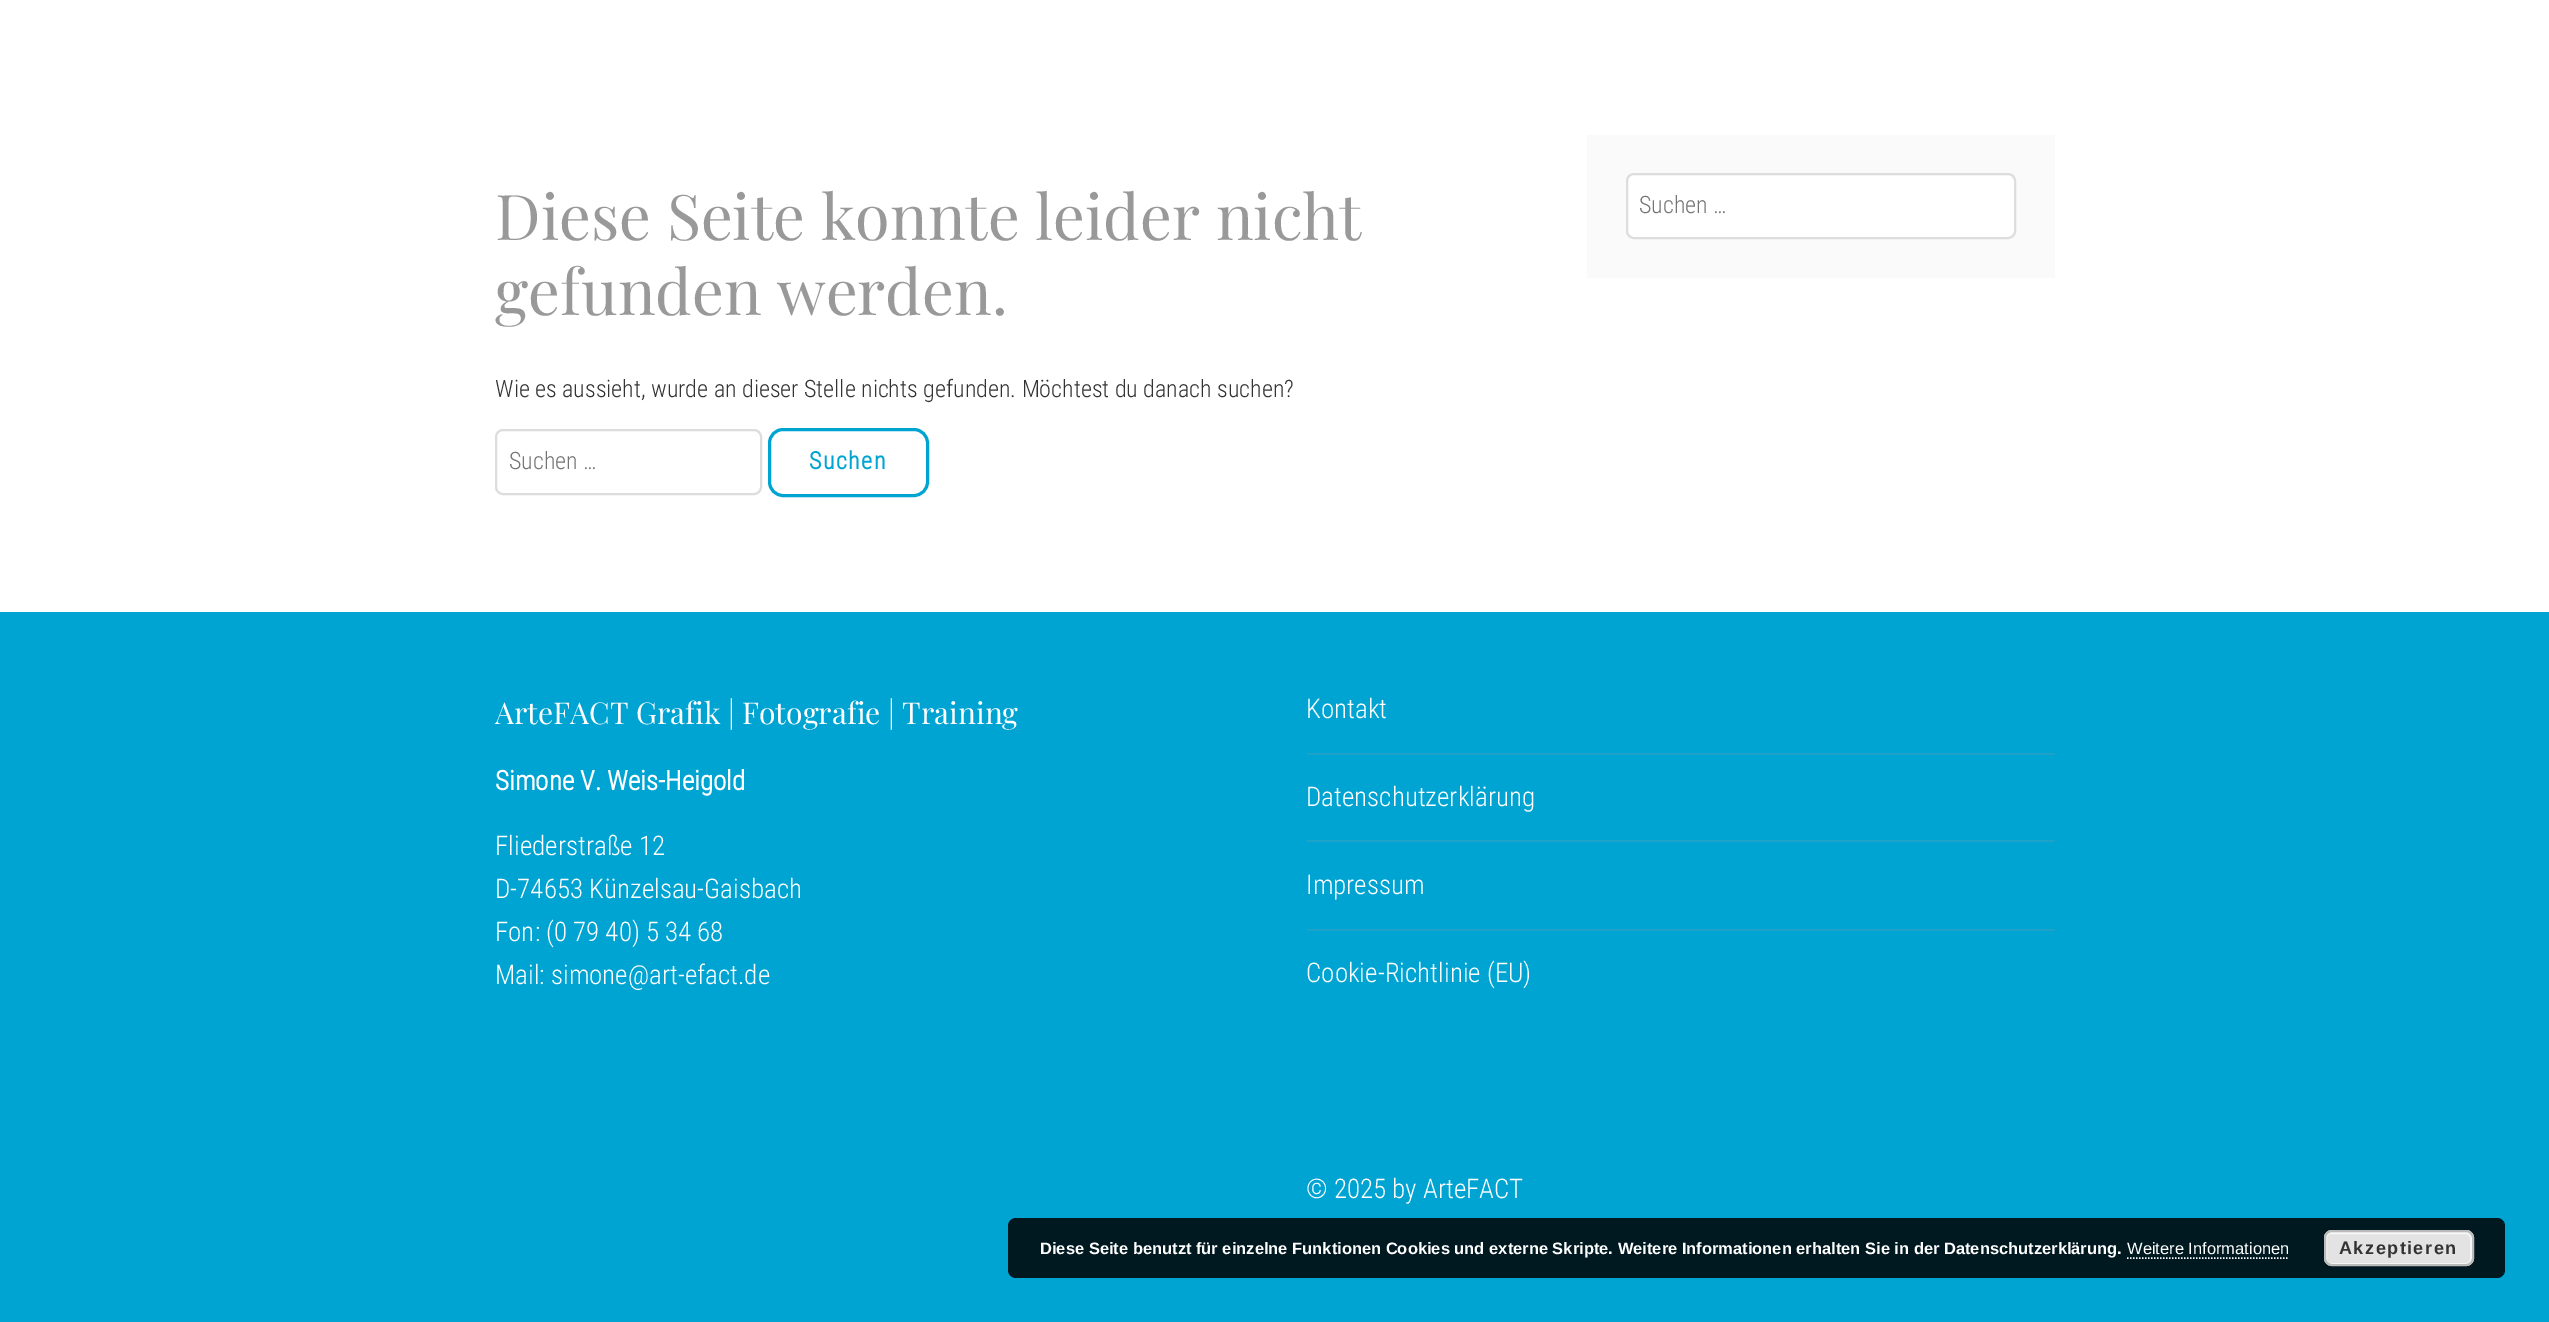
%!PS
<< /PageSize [2549 1322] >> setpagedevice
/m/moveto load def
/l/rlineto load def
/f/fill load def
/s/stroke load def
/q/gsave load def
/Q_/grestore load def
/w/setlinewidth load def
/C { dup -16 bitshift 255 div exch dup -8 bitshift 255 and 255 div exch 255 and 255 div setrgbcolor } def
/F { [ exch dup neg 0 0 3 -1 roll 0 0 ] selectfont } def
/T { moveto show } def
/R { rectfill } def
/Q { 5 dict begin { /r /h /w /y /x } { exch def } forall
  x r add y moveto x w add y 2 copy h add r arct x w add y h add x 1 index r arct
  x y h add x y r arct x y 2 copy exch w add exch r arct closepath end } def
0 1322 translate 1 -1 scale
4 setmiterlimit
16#FFFFFF C
0 0 2549 1322 R
/PlayfairDisplay-Regular 63 F
16#999999 C
(Diese Seite konnte leider nicht) 495 240 T
(gefunden werden.) 495 315 T
/RobotoCondensed-Light 24 F
16#333333 C
(Wie es aussieht, wurde an dieser Stelle nichts gefunden. Möchtest du danach suchen?) 495 397 T
16#DDDDDD C
2 w
496 430 265 64 7 Q s
16#757575 C
(Suchen …) 509 469 T
16#00A4D2 C
3 w
769.5 429.5 158 66 13.5 Q s
/RobotoCondensed-Bold 24 F
809 469 m 1.5 0 (Suchen) ashow
16#FAFAFA C
1587 135 468 143 R
16#FFFFFF C
1627 174 388 64 7 Q q f Q_
16#DDDDDD C
2 w
s
/RobotoCondensed-Light 24 F
16#757575 C
(Suchen …) 1639 213 T
16#00A4D2 C
0 612 2549 710 R
/PlayfairDisplay-Regular 30 F
16#FFFFFF C
(ArteFACT Grafik | Fotografie | Training) 495 724 T
/RobotoCondensed-Bold 27 F
(Simone V. Weis-Heigold) 495 790 T
/RobotoCondensed-Light 27 F
(Fliederstraße 12) 495 855 T
(D-74653 Künzelsau-Gaisbach) 495 898 T
(Fon: \(0 79 40\) 5 34 68) 495 941 T
(Mail: simone@art-efact.de) 495 984 T
(Kontakt) 1306 718 T
16#1FA2C7 C
1307 753 748 2 R
16#FFFFFF C
(Datenschutzerklärung) 1306 806 T
16#1FA2C7 C
1307 840 748 2 R
16#FFFFFF C
(Impressum) 1306 894 T
16#1FA2C7 C
1307 929 748 2 R
16#FFFFFF C
(Cookie-Richtlinie \(EU\)) 1306 982 T
(© 2025 by ArteFACT) 1306 1198 T
16#001920 C
1008 1218 1497 60 8 Q f
/LiberationSans-Bold 16.5 F
16#FFFFFF C
(Diese Seite benutzt für einzelne Funktionen Cookies und externe Skripte. Weitere Informationen erhalten Sie in der Datenschutzerklärung.) 1040 1254 T
/LiberationSans-Regular 16.5 F
(Weitere Informationen) 2127 1254 T
1.5 w
[1.5 1.5] 0 setdash
2127 1258 m 162 0 l s
16#E3E3E3 C
2324 1230 150 36 8 Q f
16#F6F6F6 C
2 w
[] 0 setdash
2326 1233 145 31 5 Q s
16#BBBBBB C
2325 1231 148 34 7 Q s
/LiberationSans-Bold 18 F
16#333333 C
2339 1254 m 1.5 0 (Akzeptieren) ashow
showpage
